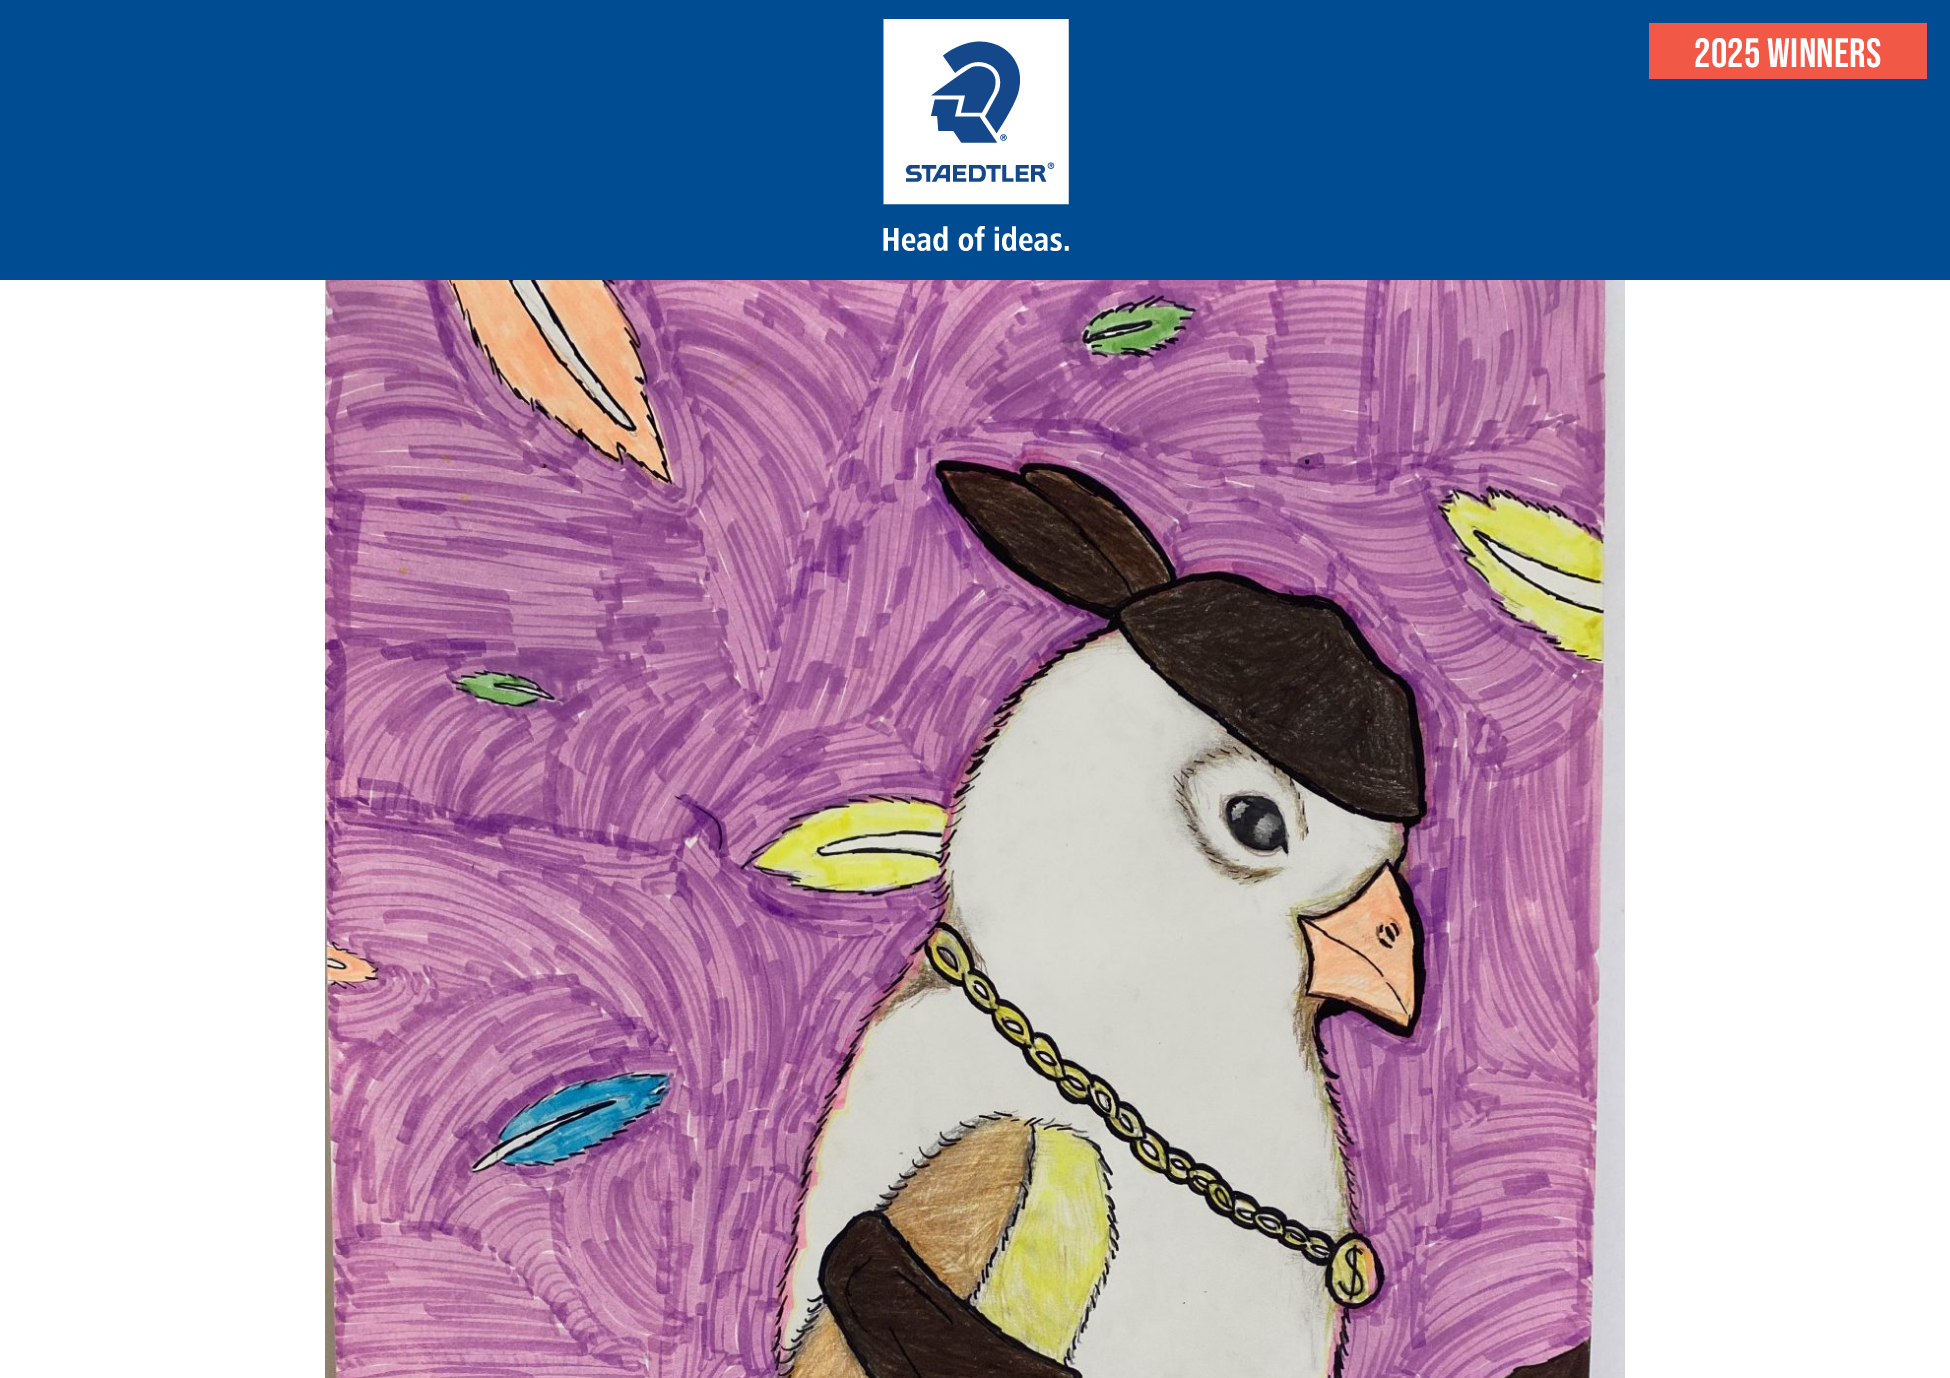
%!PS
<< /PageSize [1950 1378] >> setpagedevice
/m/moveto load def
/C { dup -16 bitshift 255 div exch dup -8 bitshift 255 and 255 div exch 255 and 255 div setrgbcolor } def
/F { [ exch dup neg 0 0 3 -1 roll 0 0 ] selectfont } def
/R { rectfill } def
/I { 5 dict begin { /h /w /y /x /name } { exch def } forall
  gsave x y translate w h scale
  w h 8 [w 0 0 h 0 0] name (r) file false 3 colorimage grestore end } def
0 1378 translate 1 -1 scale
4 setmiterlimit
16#FFFFFF C
0 0 1950 1378 R
16#004C92 C
0 0 1950 280 R
(1.rgb) 883 19 186 232 I
16#F15845 C
1649 23 278 56 R
/BebasNeue-Regular 41 F
16#FFFFFF C
1694 67 m .25 0 (2025 WINNERS) ashow
(2.rgb) 325 280 1300 1098 I
showpage
